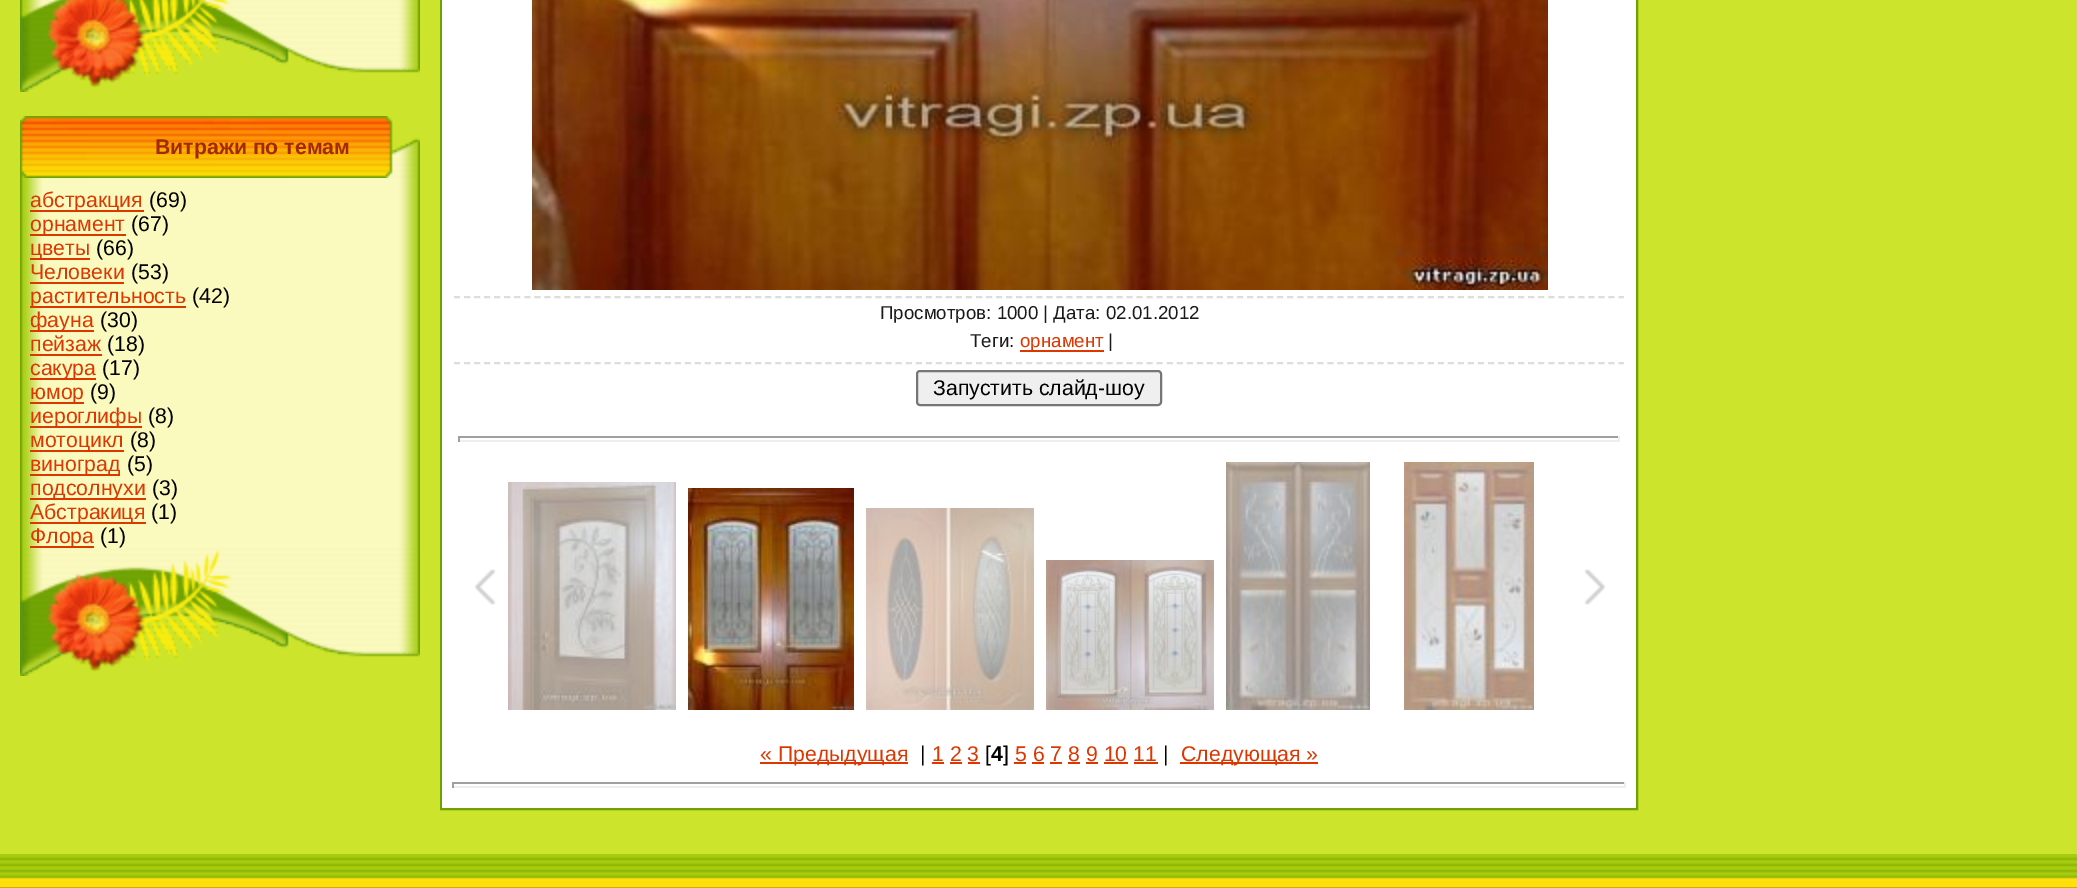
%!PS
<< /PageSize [2077 888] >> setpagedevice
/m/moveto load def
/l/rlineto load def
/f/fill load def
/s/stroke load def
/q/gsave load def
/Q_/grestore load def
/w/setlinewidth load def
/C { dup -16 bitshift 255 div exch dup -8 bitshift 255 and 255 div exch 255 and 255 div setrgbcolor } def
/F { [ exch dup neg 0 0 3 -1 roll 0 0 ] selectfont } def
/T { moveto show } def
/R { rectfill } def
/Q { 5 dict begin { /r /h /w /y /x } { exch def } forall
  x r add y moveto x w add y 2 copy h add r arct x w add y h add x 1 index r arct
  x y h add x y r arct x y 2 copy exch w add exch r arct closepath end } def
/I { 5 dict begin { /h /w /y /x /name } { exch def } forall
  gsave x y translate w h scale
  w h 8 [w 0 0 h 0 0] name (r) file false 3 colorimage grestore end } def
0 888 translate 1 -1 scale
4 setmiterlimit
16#CCE42C C
0 0 2077 888 R
(1.rgb) 20 0 400 92 I
(2.rgb) 20 116 400 62 I
/LiberationSans-Bold 21.25 F
16#A42900 C
(Витражи по темам) 155 154 T
(3.rgb) 20 178 400 370 I
16#DC3700 C
30 210 114 2 R
/LiberationSans-Regular 21.25 F
(абстракция) 30 207 T
16#000000 C
(\(69\)) 149 207 T
16#DC3700 C
30 234 96 2 R
(орнамент) 30 231 T
16#000000 C
(\(67\)) 131 231 T
16#DC3700 C
30 258 60 2 R
(цветы) 30 255 T
16#000000 C
(\(66\)) 96 255 T
16#DC3700 C
(Человеки) 30 279 T
30 282 94 2 R
16#000000 C
(\(53\)) 131 279 T
16#DC3700 C
30 306 156 2 R
(растительность) 30 303 T
16#000000 C
(\(42\)) 192 303 T
16#DC3700 C
30 330 64 2 R
(фауна) 30 327 T
16#000000 C
(\(30\)) 100 327 T
16#DC3700 C
(пейзаж) 30 351 T
30 354 72 2 R
16#000000 C
(\(18\)) 107 351 T
16#DC3700 C
30 378 66 2 R
(сакура) 30 375 T
16#000000 C
(\(17\)) 102 375 T
16#DC3700 C
30 402 54 2 R
(юмор) 30 399 T
16#000000 C
(\(9\)) 90 399 T
16#DC3700 C
30 426 112 2 R
(иероглифы) 30 423 T
16#000000 C
(\(8\)) 148 423 T
16#DC3700 C
30 450 94 2 R
(мотоцикл) 30 447 T
16#000000 C
(\(8\)) 130 447 T
16#DC3700 C
30 474 90 2 R
(виноград) 30 471 T
16#000000 C
(\(5\)) 127 471 T
16#DC3700 C
30 498 116 2 R
(подсолнухи) 30 495 T
16#000000 C
(\(3\)) 152 495 T
16#DC3700 C
30 522 116 2 R
(Абстракиця) 30 519 T
16#000000 C
(\(1\)) 151 519 T
16#DC3700 C
30 546 64 2 R
(Флора) 30 543 T
16#000000 C
(\(1\)) 100 543 T
(4.rgb) 20 548 400 128 I
16#6DA104 C
2 w
441 -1 1196 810 rectstroke
16#FFFFFF C
442 0 1194 808 R
(5.rgb) 532 0 1016 290 I
16#DDDDDD C
[6 4.04] 0 setdash
454 297 m 1170 0 l s
454 363 m 1170 0 l s
/LiberationSans-Regular 18.7 F
16#1A1A1A C
(Просмотров: 1000 | Дата: 02.01.2012) 880 319 T
(Теги:) 970 347 T
16#DC3700 C
1020 350 84 2 R
(орнамент) 1020 347 T
16#1A1A1A C
(|) 1108 347 T
16#EFEFEF C
917 371 244 34 3 Q q f Q_
16#767676 C
[] 0 setdash
s
/LiberationSans-Regular 21.25 F
16#000000 C
(Запустить слайд-шоу) 933 395 T
16#9F9F9F C
458 436 1162 2 R
16#EEEEEE C
1618 436 2 6 R
458 440 1162 2 R
16#9F9F9F C
458 436 2 6 R
(6.rgb) 474 569 22 36 I
(7.rgb) 508 482 168 228 I
(8.rgb) 688 488 166 222 I
(9.rgb) 866 508 168 202 I
(10.rgb) 1046 560 168 150 I
(11.rgb) 1226 462 144 248 I
(12.rgb) 1404 462 130 248 I
(13.rgb) 1584 569 22 36 I
16#DC3700 C
760 762 148 2 R
(« Предыдущая) 760 761 T
16#000000 C
(|) 920 761 T
16#DC3700 C
(1 2 3) 932 761 T
932 762 12 2 R
16#000000 C
([) 985 761 T
/LiberationSans-Bold 21.25 F
(4) 991 761 T
/LiberationSans-Regular 21.25 F
(]) 1003 761 T
16#DC3700 C
(5 6 7 8 9 10 11) 1015 761 T
1014 762 12 2 R
16#000000 C
(|) 1163 761 T
16#DC3700 C
1180 762 138 2 R
(Следующая ») 1181 761 T
950 762 12 2 R
968 762 12 2 R
1032 762 12 2 R
1050 762 12 2 R
1068 762 12 2 R
1086 762 12 2 R
1104 762 24 2 R
1134 762 24 2 R
16#9F9F9F C
452 782 1174 2 R
16#EEEEEE C
1624 782 2 6 R
452 786 1174 2 R
16#9F9F9F C
452 782 2 6 R
(14.rgb) 0 854 2077 34 I
showpage
